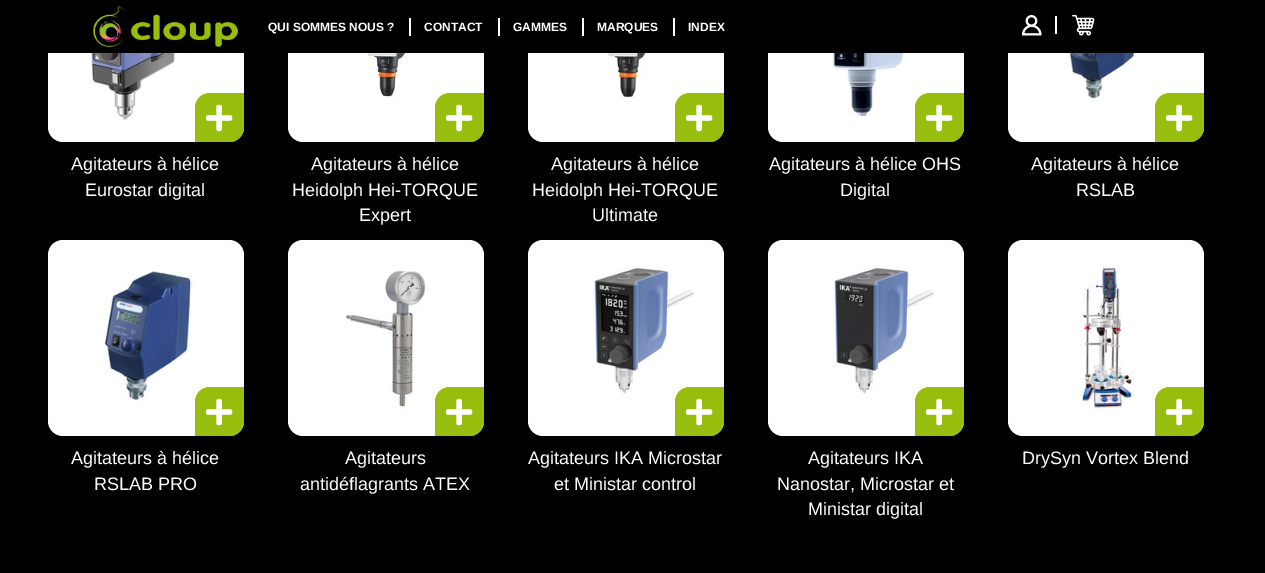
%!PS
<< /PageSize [1265 573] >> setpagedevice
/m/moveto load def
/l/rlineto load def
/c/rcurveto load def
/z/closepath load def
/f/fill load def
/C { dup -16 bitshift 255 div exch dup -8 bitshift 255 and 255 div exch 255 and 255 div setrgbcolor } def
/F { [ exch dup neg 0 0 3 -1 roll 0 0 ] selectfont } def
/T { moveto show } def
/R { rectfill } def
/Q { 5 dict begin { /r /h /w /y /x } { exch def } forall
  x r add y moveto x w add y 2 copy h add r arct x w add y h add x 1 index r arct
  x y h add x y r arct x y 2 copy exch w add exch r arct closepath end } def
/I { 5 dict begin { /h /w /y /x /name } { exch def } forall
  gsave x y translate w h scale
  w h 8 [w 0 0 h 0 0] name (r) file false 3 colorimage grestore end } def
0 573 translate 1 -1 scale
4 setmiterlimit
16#000000 C
0 0 1265 573 R
16#FFFFFF C
48 -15 196 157 15 Q f
288 -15 196 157 15 Q f
528 -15 196 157 15 Q f
768 -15 196 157 15 Q f
1008 -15 196 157 15 Q f
16#000000 C
48 0 1156 53 R
(1.rgb) 92 6 146 41 I
/LiberationSans-Bold 12 F
16#FFFFFF C
(QUI SOMMES NOUS ?) 268 31 T
409 18 2 18 R
(CONTACT) 424 31 T
498 18 2 18 R
(GAMMES) 513 31 T
582 18 2 18 R
(MARQUES) 597 31 T
673 18 2 18 R
(INDEX) 688 31 T
(2.rgb) 1022 15 20 21 I
1055 16 2 18 R
(3.rgb) 1072 15 23 21 I
(4.rgb) 85 53 126 67 I
16#98BE0D C
210 93 m 34 0 l 0 34 l 0 8.5 -6.5 15 -15 15 c -34 0 l 0 -34 l 0 -8.5 6.5 -15 15 -15 c z f
(5.rgb) 206 104 27 28 I
/LiberationSans-Regular 18 F
16#FFFFFF C
(Agitateurs à hélice) 71 170 T
(Eurostar digital) 85 196 T
(6.rgb) 366 53 48 45 I
16#98BE0D C
450 93 m 34 0 l 0 34 l 0 8.5 -6.5 15 -15 15 c -34 0 l 0 -34 l 0 -8.5 6.5 -15 15 -15 c z f
(5.rgb) 446 104 27 28 I
16#FFFFFF C
(Agitateurs à hélice) 311 170 T
(Heidolph Hei-TORQUE) 292 196 T
(Expert) 359 221 T
(7.rgb) 606 53 48 45 I
16#98BE0D C
690 93 m 34 0 l 0 34 l 0 8.5 -6.5 15 -15 15 c -34 0 l 0 -34 l 0 -8.5 6.5 -15 15 -15 c z f
(5.rgb) 686 104 27 28 I
16#FFFFFF C
(Agitateurs à hélice) 551 170 T
(Heidolph Hei-TORQUE) 532 196 T
(Ultimate) 592 221 T
(8.rgb) 831 53 75 64 I
16#98BE0D C
930 93 m 34 0 l 0 34 l 0 8.5 -6.5 15 -15 15 c -34 0 l 0 -34 l 0 -8.5 6.5 -15 15 -15 c z f
(5.rgb) 926 104 27 28 I
16#FFFFFF C
(Agitateurs à hélice OHS) 769 170 T
(Digital) 840 196 T
(9.rgb) 1065 53 74 46 I
16#98BE0D C
1170 93 m 34 0 l 0 34 l 0 8.5 -6.5 15 -15 15 c -34 0 l 0 -34 l 0 -8.5 6.5 -15 15 -15 c z f
(5.rgb) 1166 104 27 28 I
16#FFFFFF C
(Agitateurs à hélice) 1031 170 T
(RSLAB) 1076 196 T
48 240 196 196 15 Q f
(10.rgb) 104 271 90 130 I
16#98BE0D C
210 387 m 34 0 l 0 34 l 0 8.5 -6.5 15 -15 15 c -34 0 l 0 -34 l 0 -8.5 6.5 -15 15 -15 c z f
(5.rgb) 206 398 27 28 I
16#FFFFFF C
(Agitateurs à hélice) 71 464 T
(RSLAB PRO) 94 490 T
288 240 196 196 15 Q f
(11.rgb) 345 270 81 141 I
16#98BE0D C
450 387 m 34 0 l 0 34 l 0 8.5 -6.5 15 -15 15 c -34 0 l 0 -34 l 0 -8.5 6.5 -15 15 -15 c z f
(5.rgb) 446 398 27 28 I
16#FFFFFF C
(Agitateurs) 345 464 T
(antidéflagrants ATEX) 300 490 T
528 240 196 196 15 Q f
(12.rgb) 591 266 103 128 I
16#98BE0D C
690 387 m 34 0 l 0 34 l 0 8.5 -6.5 15 -15 15 c -34 0 l 0 -34 l 0 -8.5 6.5 -15 15 -15 c z f
(5.rgb) 686 398 27 28 I
16#FFFFFF C
(Agitateurs IKA Microstar) 528 464 T
(et Ministar control) 554 490 T
768 240 196 196 15 Q f
(13.rgb) 831 265 103 129 I
16#98BE0D C
930 387 m 34 0 l 0 34 l 0 8.5 -6.5 15 -15 15 c -34 0 l 0 -34 l 0 -8.5 6.5 -15 15 -15 c z f
(5.rgb) 926 398 27 28 I
16#FFFFFF C
(Agitateurs IKA) 808 464 T
(Nanostar, Microstar et) 777 490 T
(Ministar digital) 808 515 T
1008 240 196 196 15 Q f
(14.rgb) 1077 264 58 147 I
16#98BE0D C
1170 387 m 34 0 l 0 34 l 0 8.5 -6.5 15 -15 15 c -34 0 l 0 -34 l 0 -8.5 6.5 -15 15 -15 c z f
(5.rgb) 1166 398 27 28 I
16#FFFFFF C
(DrySyn Vortex Blend) 1022 464 T
showpage
